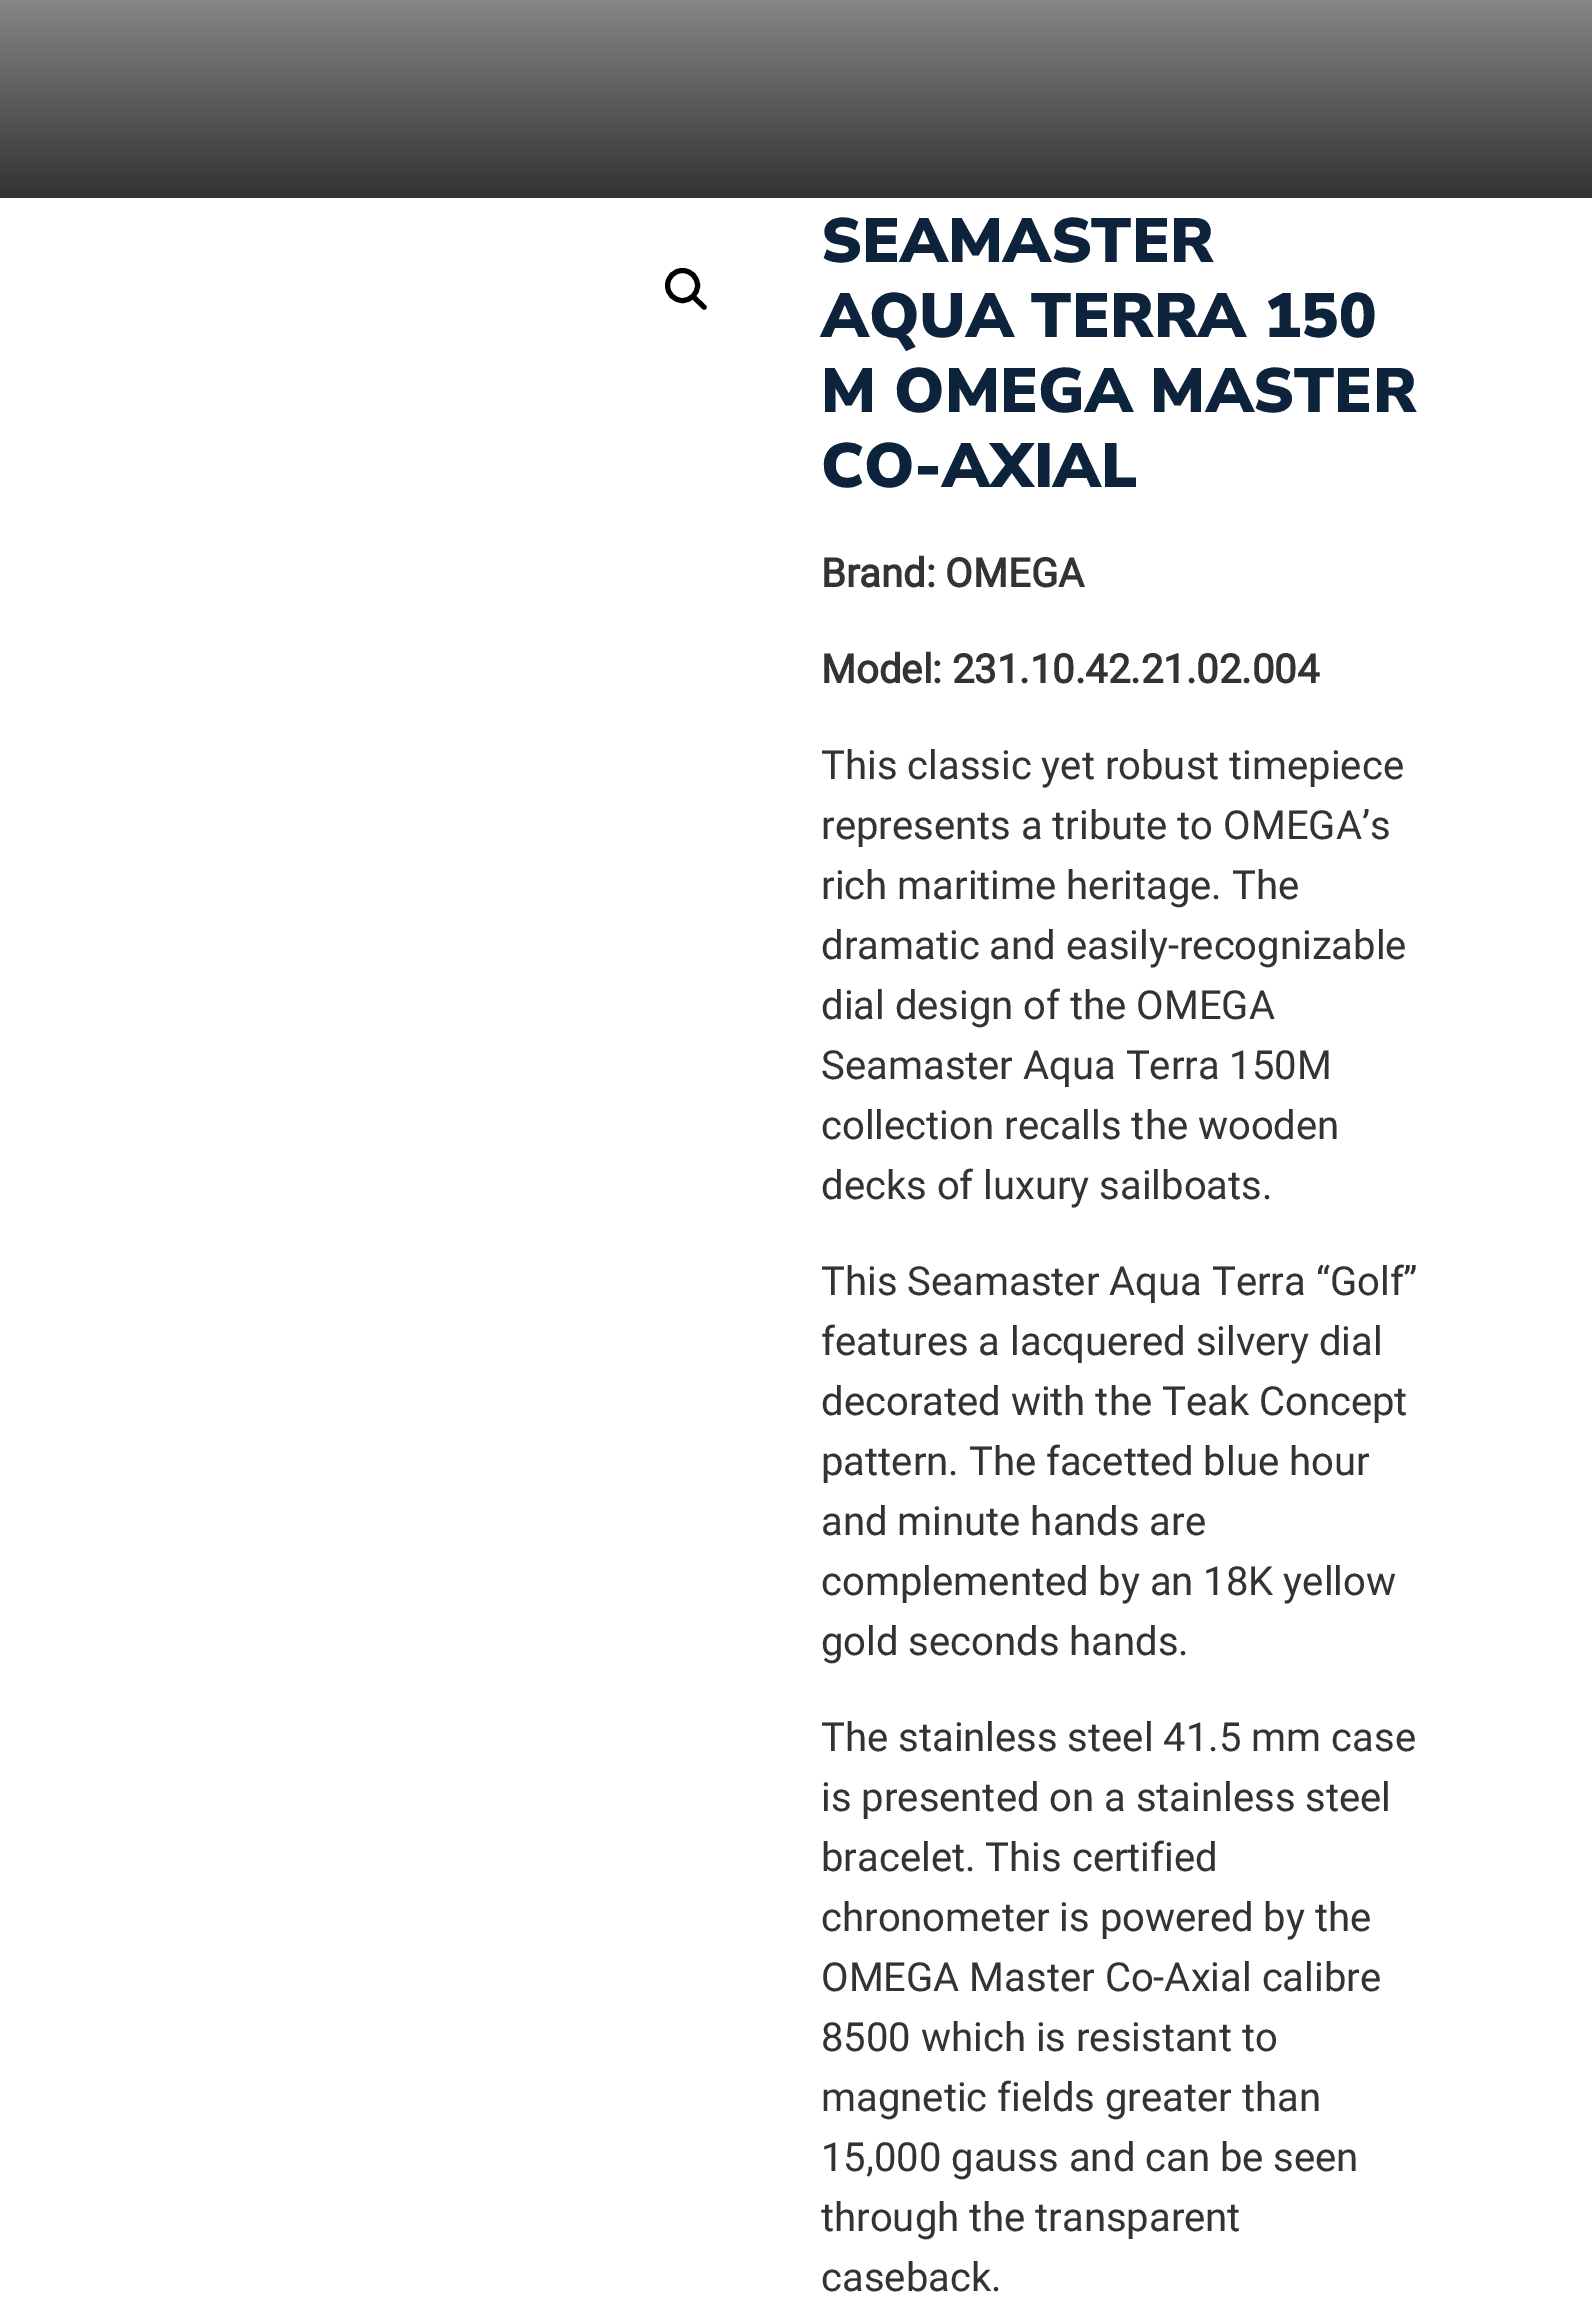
%!PS
<< /PageSize [1592 2305] >> setpagedevice
/m/moveto load def
/l/rlineto load def
/c/rcurveto load def
/z/closepath load def
/f/fill load def
/s/stroke load def
/q/gsave load def
/Q_/grestore load def
/w/setlinewidth load def
/C { dup -16 bitshift 255 div exch dup -8 bitshift 255 and 255 div exch 255 and 255 div setrgbcolor } def
/F { [ exch dup neg 0 0 3 -1 roll 0 0 ] selectfont } def
/T { moveto show } def
/R { rectfill } def
/O { newpath 0 360 arc closepath } def
0 2305 translate 1 -1 scale
4 setmiterlimit
16#FFFFFF C
0 0 1592 2305 R
q 0 0 m 1592 0 l 0 198 l -1592 0 l z clip newpath
<< /ShadingType 2 /ColorSpace /DeviceRGB /Coords [796 0 796 198] /Extend [true true] /Function << /FunctionType 2 /Domain [0 1] /C0 [.529 .522 .522] /C1 [.2 .2 .2] /N 1 >> >> shfill Q_
16#000000 C
5 w
682.5 285.5 15 O s
691.5 295 m 1 -1 2.5 -1 3.5 0 c 11 10.5 l 1 1 1 2.5 0 3.5 c -1 1 -2.5 1 -3.5 0 c -11 -10.5 l -1 -1 -1 -2.5 0 -3.5 c z f
/NunitoSans-Black 62.5 F
16#0D233C C
(SEAMASTER) 821 262 T
(AQUA TERRA 150) 821 337 T
(M OMEGA MASTER) 821 412 T
(CO-AXIAL) 821 487 T
/Roboto-Bold 40 F
16#333333 C
(Brand: OMEGA) 821 587 T
(Model: 231.10.42.21.02.004) 821 683 T
/Roboto-Regular 40 F
(This classic yet robust timepiece) 821 779 T
(represents a tribute to OMEGA’s) 821 839 T
(rich maritime heritage. The) 821 899 T
(dramatic and easily-recognizable) 821 959 T
(dial design of the OMEGA) 821 1019 T
(Seamaster Aqua Terra 150M) 821 1079 T
(collection recalls the wooden) 821 1139 T
(decks of luxury sailboats.) 821 1199 T
(This Seamaster Aqua Terra “Golf”) 821 1295 T
(features a lacquered silvery dial) 821 1355 T
(decorated with the Teak Concept) 821 1415 T
(pattern. The facetted blue hour) 821 1475 T
(and minute hands are) 821 1535 T
(complemented by an 18K yellow) 821 1595 T
(gold seconds hands.) 821 1655 T
(The stainless steel 41.5 mm case) 821 1751 T
(is presented on a stainless steel) 821 1811 T
(bracelet. This certified) 821 1871 T
(chronometer is powered by the) 821 1931 T
(OMEGA Master Co-Axial calibre) 821 1991 T
(8500 which is resistant to) 821 2051 T
(magnetic fields greater than) 821 2111 T
(15,000 gauss and can be seen) 821 2171 T
(through the transparent) 821 2231 T
(caseback.) 821 2291 T
showpage
